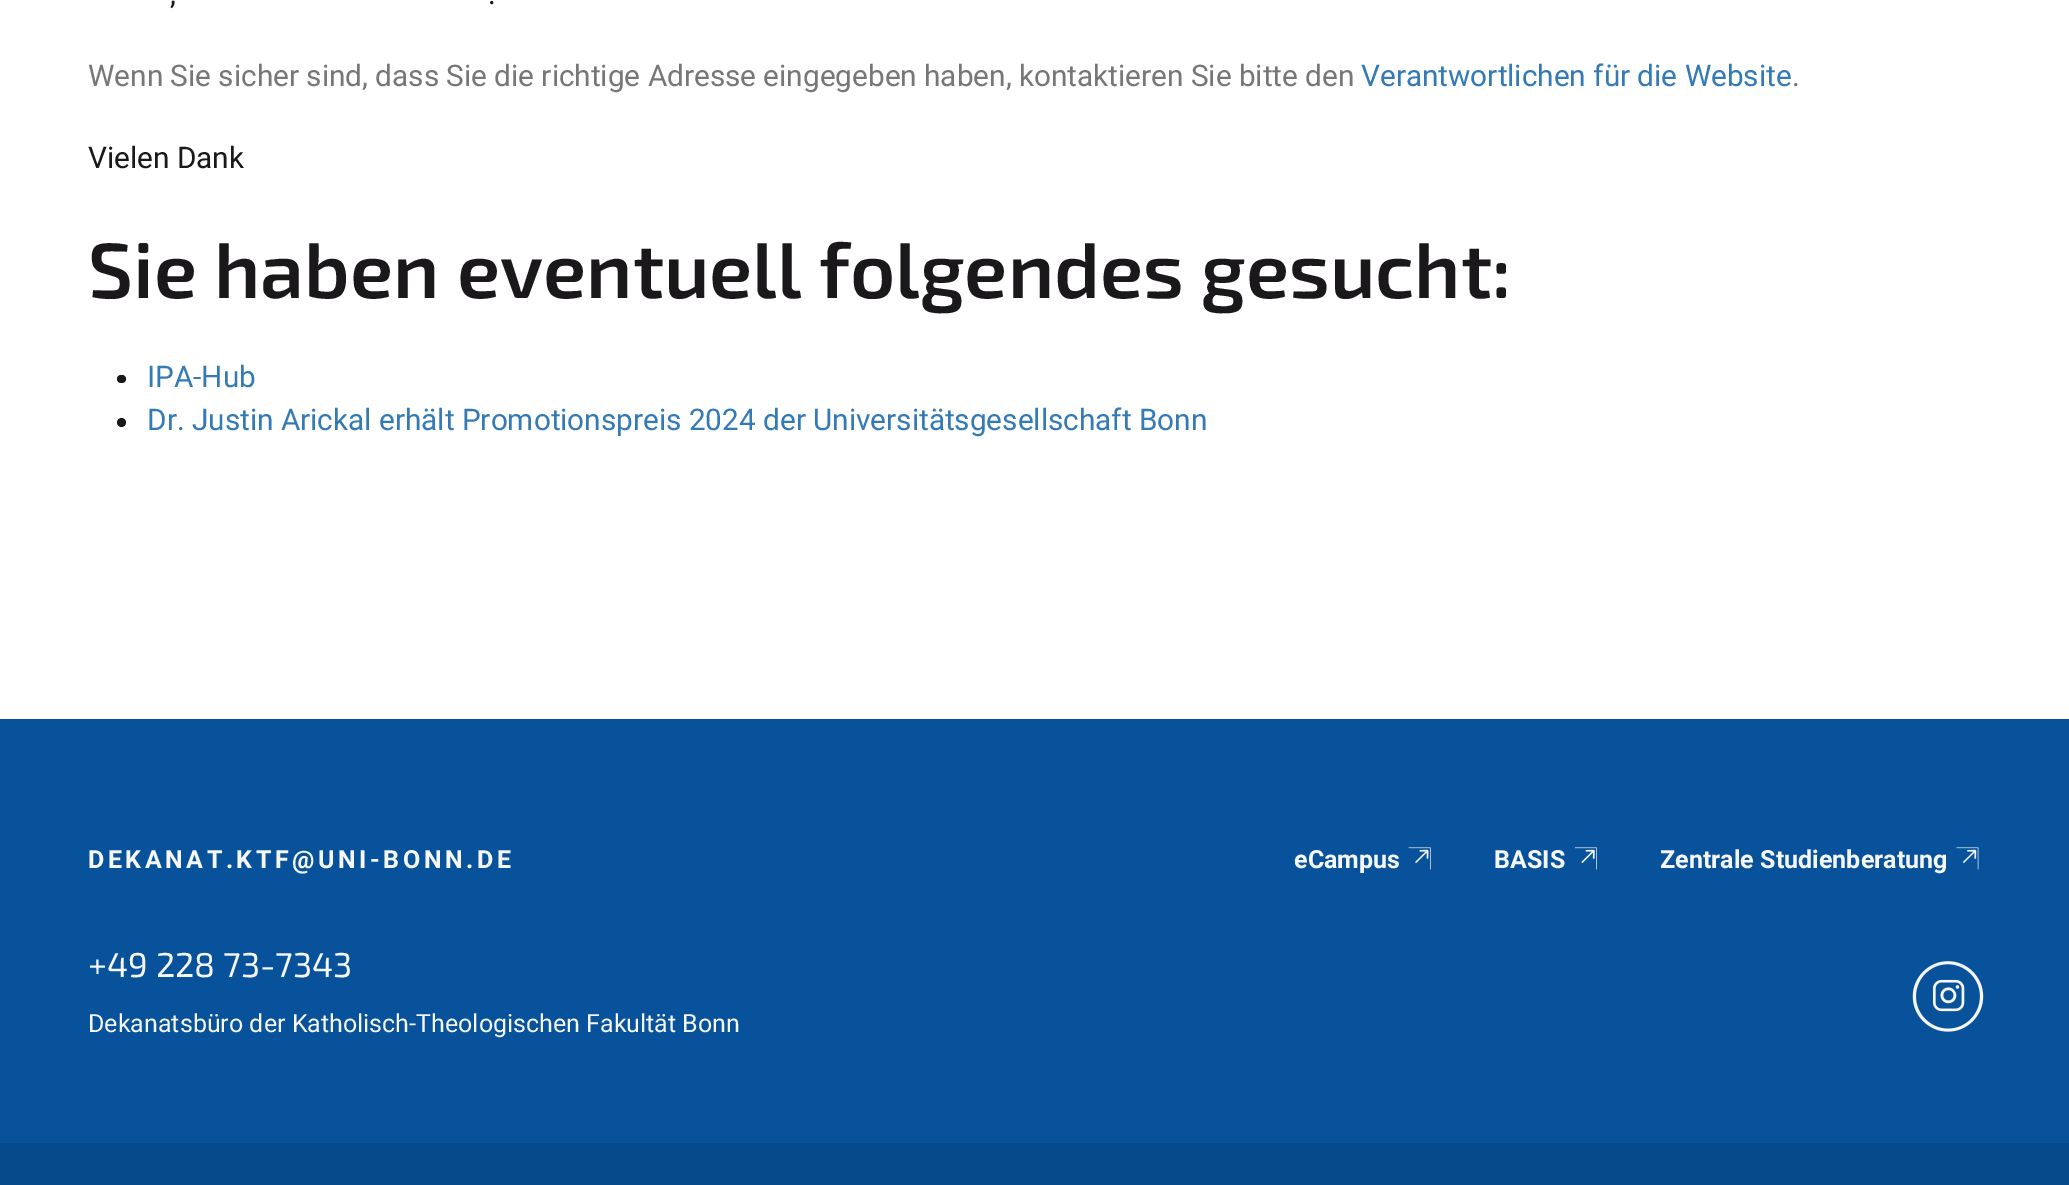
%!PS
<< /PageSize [2069 1185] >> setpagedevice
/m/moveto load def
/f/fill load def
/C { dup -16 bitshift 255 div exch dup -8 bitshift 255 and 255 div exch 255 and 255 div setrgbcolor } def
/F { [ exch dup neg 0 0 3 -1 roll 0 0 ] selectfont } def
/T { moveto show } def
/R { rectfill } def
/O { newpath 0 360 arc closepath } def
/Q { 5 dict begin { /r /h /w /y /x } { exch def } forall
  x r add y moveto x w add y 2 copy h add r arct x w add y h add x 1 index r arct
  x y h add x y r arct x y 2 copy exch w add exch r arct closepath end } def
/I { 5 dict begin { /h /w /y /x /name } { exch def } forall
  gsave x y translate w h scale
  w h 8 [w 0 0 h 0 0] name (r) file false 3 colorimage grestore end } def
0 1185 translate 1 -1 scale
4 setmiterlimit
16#FFFFFF C
0 0 2069 1185 R
/Roboto-Regular 29.75 F
16#1A181B C
(,) 170 4 T
(.) 488 4 T
16#777777 C
(Wenn Sie sicher sind, dass Sie die richtige Adresse eingegeben haben, kontaktieren Sie bitte den) 88 86 T
16#337AB7 C
(Verantwortlichen für die Website) 1361 86 T
16#777777 C
(.) 1792 86 T
16#1A181B C
(Vielen Dank) 88 168 T
/Exo2-SemiBold 78.25 F
(Sie haben eventuell folgendes gesucht:) 88 298 T
117 375 9 8 4 Q f
/Roboto-Regular 29.75 F
16#337AB7 C
(IPA-Hub) 147 387 T
16#1A181B C
121.5 422.5 4.5 O f
16#337AB7 C
(Dr. Justin Arickal erhält Promotionspreis 2024 der Universitätsgesellschaft Bonn) 147 430 T
16#07529A C
0 719 2069 424 R
/Roboto-Bold 25.05 F
16#F6F7F9 C
88 868 m 3.5 0 (DEKANAT.KTF@UNI-BONN.DE) ashow
/Exo2-Regular 34.5 F
(+49 228 73-7343) 88 977 T
/Roboto-Regular 25.05 F
(Dekanatsbüro der Katholisch-Theologischen Fakultät Bonn) 88 1032 T
/Roboto-Bold 25.05 F
(eCampus) 1294 868 T
(1.rgb) 1408 847 23 23 I
(BASIS) 1494 868 T
(2.rgb) 1575 847 22 23 I
(Zentrale Studienberatung) 1660 868 T
(3.rgb) 1956 847 23 23 I
(4.rgb) 1912 961 72 71 I
16#06498A C
0 1143 2069 42 R
showpage
